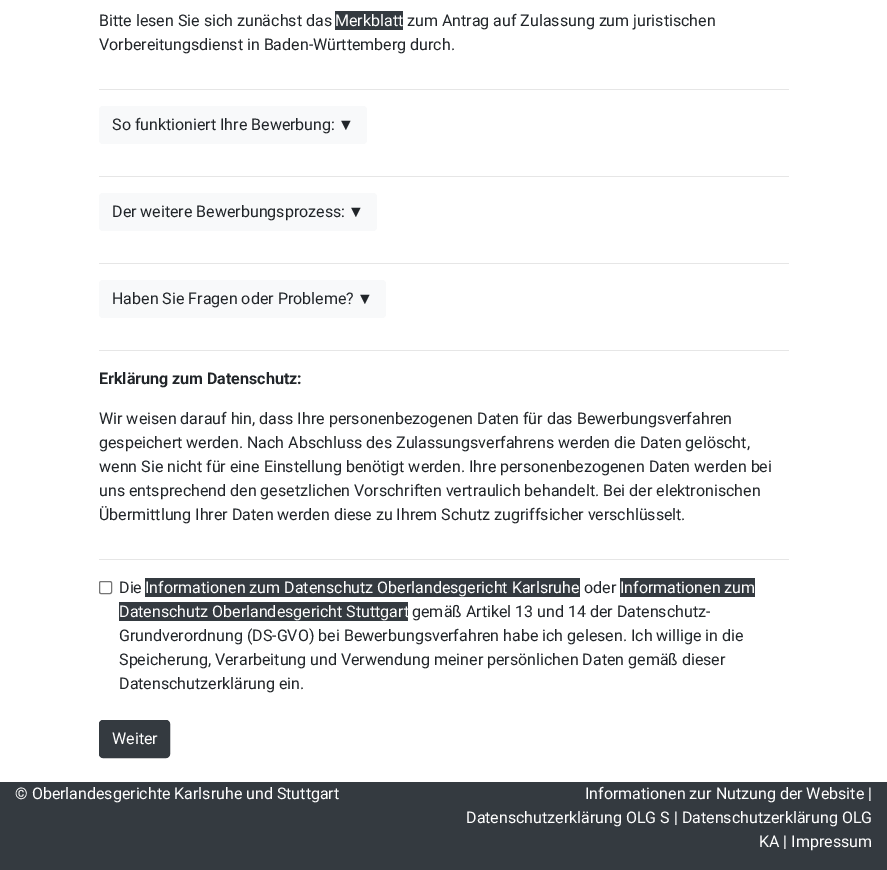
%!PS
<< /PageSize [887 870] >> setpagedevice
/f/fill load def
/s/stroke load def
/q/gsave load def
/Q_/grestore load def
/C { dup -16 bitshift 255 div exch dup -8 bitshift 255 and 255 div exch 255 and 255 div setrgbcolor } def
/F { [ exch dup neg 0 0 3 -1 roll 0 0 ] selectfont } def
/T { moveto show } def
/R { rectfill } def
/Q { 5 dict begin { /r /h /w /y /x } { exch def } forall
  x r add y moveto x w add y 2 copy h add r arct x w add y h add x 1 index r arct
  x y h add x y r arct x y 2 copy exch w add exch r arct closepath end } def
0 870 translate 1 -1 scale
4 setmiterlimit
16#FFFFFF C
0 0 887 870 R
/Roboto-Regular 16 F
16#212529 C
(Bitte lesen Sie sich zunächst das) 99 26 T
16#343A40 C
335 11 68 19 R
16#FFFFFF C
(Merkblatt) 335 26 T
16#212529 C
(zum Antrag auf Zulassung zum juristischen) 407 26 T
(Vorbereitungsdienst in Baden-Württemberg durch.) 99 50 T
16#E6E6E6 C
99 89 690 1 R
16#F8F9FA C
99 106 268 38 4 Q f
16#212529 C
(So funktioniert Ihre Bewerbung:) 112 130 T
/LiberationSans-Regular 16 F
(▼) 338 130 T
16#E6E6E6 C
99 176 690 1 R
16#F8F9FA C
99 193 278 38 4 Q f
/Roboto-Regular 16 F
16#212529 C
(Der weitere Bewerbungsprozess:) 112 217 T
/LiberationSans-Regular 16 F
(▼) 348 217 T
16#E6E6E6 C
99 263 690 1 R
16#F8F9FA C
99 280 287 38 4 Q f
/Roboto-Regular 16 F
16#212529 C
(Haben Sie Fragen oder Probleme?) 112 304 T
/LiberationSans-Regular 16 F
(▼) 357 304 T
16#E6E6E6 C
99 350 690 1 R
/Roboto-Bold 16 F
16#212529 C
(Erklärung zum Datenschutz:) 99 384 T
/Roboto-Regular 16 F
(Wir weisen darauf hin, dass Ihre personenbezogenen Daten für das Bewerbungsverfahren) 99 424 T
(gespeichert werden. Nach Abschluss des Zulassungsverfahrens werden die Daten gelöscht,) 99 448 T
(wenn Sie nicht für eine Einstellung benötigt werden. Ihre personenbezogenen Daten werden bei) 99 472 T
(uns entsprechend den gesetzlichen Vorschriften vertraulich behandelt. Bei der elektronischen) 99 496 T
(Übermittlung Ihrer Daten werden diese zu Ihrem Schutz zugriffsicher verschlüsselt.) 99 520 T
16#E6E6E6 C
99 559 690 1 R
16#767676 C
99.5 581.5 12 12 1.5 Q s
16#212529 C
(Die) 119 593 T
16#343A40 C
145 578 435 19 R
16#FFFFFF C
(Informationen zum Datenschutz Oberlandesgericht Karlsruhe) 145 593 T
16#212529 C
(oder) 584 593 T
16#343A40 C
620 578 135 19 R
16#FFFFFF C
(Informationen zum) 620 593 T
16#343A40 C
119 602 289 19 R
16#FFFFFF C
(Datenschutz Oberlandesgericht Stuttgart) 119 617 T
16#212529 C
(gemäß Artikel 13 und 14 der Datenschutz-) 412 617 T
(Grundverordnung \(DS-GVO\) bei Bewerbungsverfahren habe ich gelesen. Ich willige in die) 119 641 T
(Speicherung, Verarbeitung und Verwendung meiner persönlichen Daten gemäß dieser) 119 665 T
(Datenschutzerklärung ein.) 119 689 T
16#343A40 C
99.5 720.5 70 37 3.5 Q q f Q_
s
16#FFFFFF C
(Weiter) 112 744 T
16#343A40 C
0 782 887 88 R
16#FFFFFF C
(© Oberlandesgerichte Karlsruhe und Stuttgart) 15 799 T
(Informationen zur Nutzung der Website |) 585 799 T
(Datenschutzerklärung OLG S | Datenschutzerklärung OLG) 466 823 T
(KA | Impressum) 759 847 T
showpage
